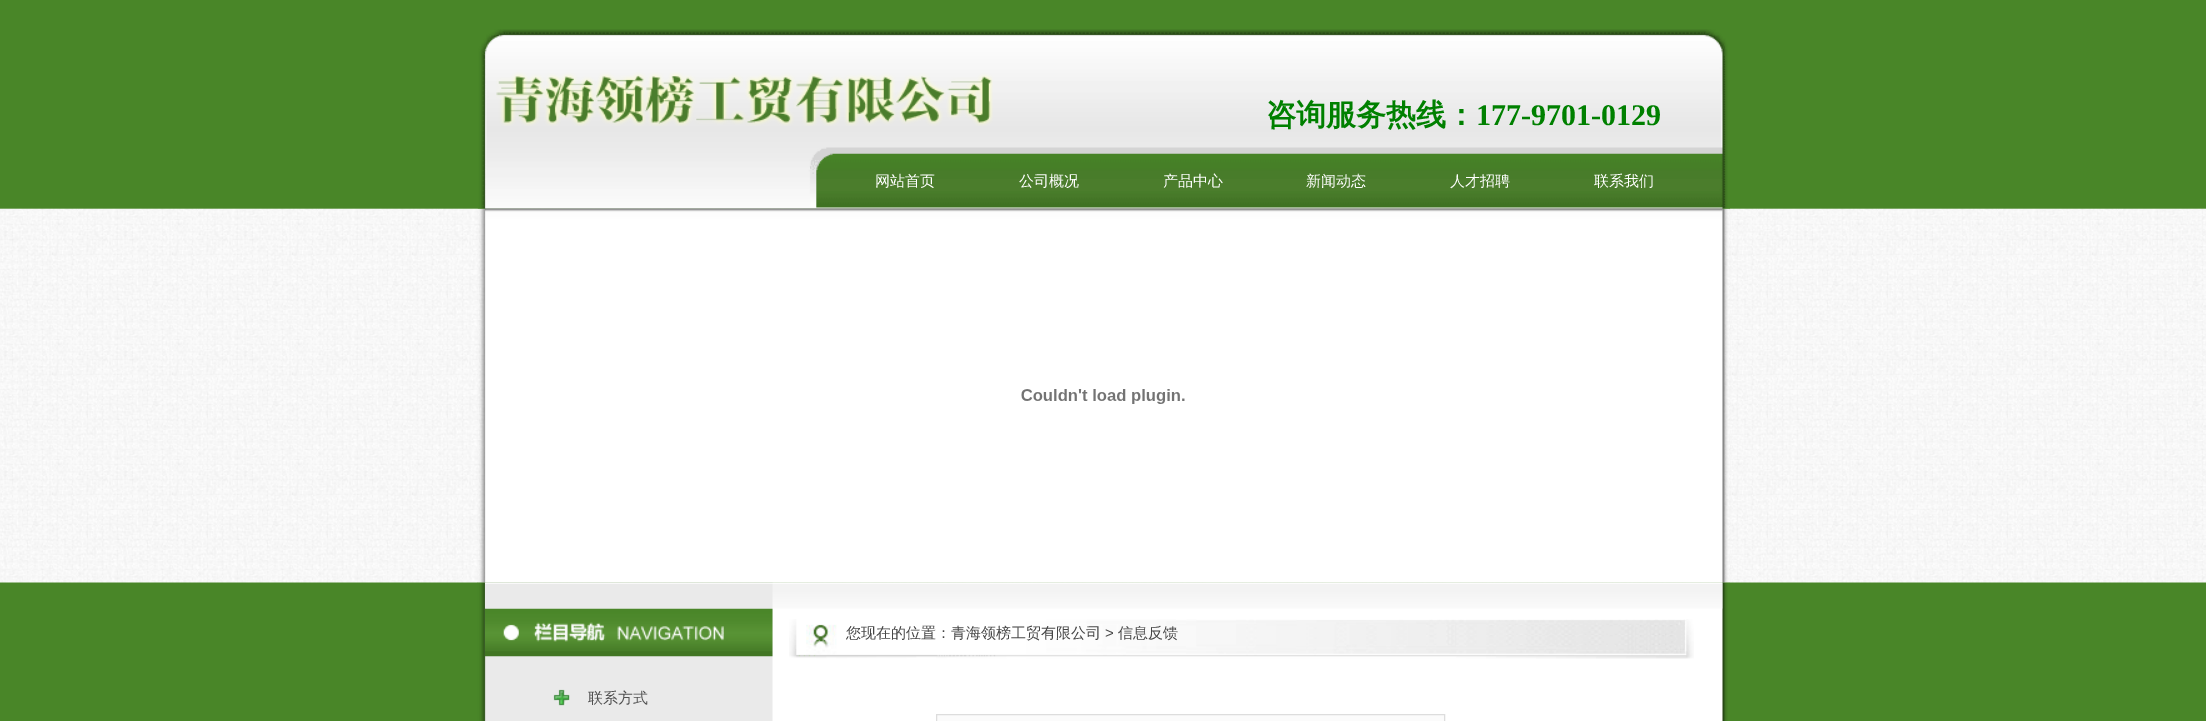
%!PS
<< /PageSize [2206 721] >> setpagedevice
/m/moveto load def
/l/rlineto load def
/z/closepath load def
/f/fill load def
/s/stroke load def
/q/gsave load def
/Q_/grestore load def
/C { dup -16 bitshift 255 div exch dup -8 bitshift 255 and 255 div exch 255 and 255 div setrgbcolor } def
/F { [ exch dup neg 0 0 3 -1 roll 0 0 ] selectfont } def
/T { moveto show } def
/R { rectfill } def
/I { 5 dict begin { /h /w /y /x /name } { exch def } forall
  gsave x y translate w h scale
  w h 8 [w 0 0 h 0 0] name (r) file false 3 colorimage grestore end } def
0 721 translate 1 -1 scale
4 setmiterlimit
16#498628 C
0 0 2206 721 R
(1.rgb) 0 208 2206 375 I
(7.rgb) 477 582 1253 139 I
(8.rgb) 485 582 1238 27 I
(4.rgb) 477 208 1253 375 I
(5.rgb) 485 208 1238 4 I
(2.rgb) 477 29 1253 180 I
(3.rgb) 496 72 497 54 I
/WenQuanYiZenHei-Bold 30 F
16#008000 C
(咨询服务热线：) 1266 125 T
/LiberationSerif-Bold 30 F
(177-9701-0129) 1476 125 T
/WenQuanYiZenHei-Medium 15 F
16#FFFFFF C
(网站首页) 875 186 T
(公司概况) 1019 186 T
(产品中心) 1163 186 T
(新闻动态) 1306 186 T
(人才招聘) 1450 186 T
(联系我们) 1594 186 T
(6.rgb) 1021 389 164 15 I
(9.rgb) 789 619 905 40 I
16#464646 C
(您现在的位置：青海领榜工贸有限公司) 846 638 T
/LiberationSans-Regular 15 F
(>) 1105 638 T
/WenQuanYiZenHei-Medium 15 F
(信息反馈) 1118 638 T
(10.rgb) 485 608 288 49 I
(11.rgb) 553 689 17 17 I
16#505050 C
(联系方式) 588 703 T
16#FBFBFB C
936.5 714.5 m 508 0 l 0 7 l -508 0 l z q f Q_
16#DDDDDD C
s
showpage
